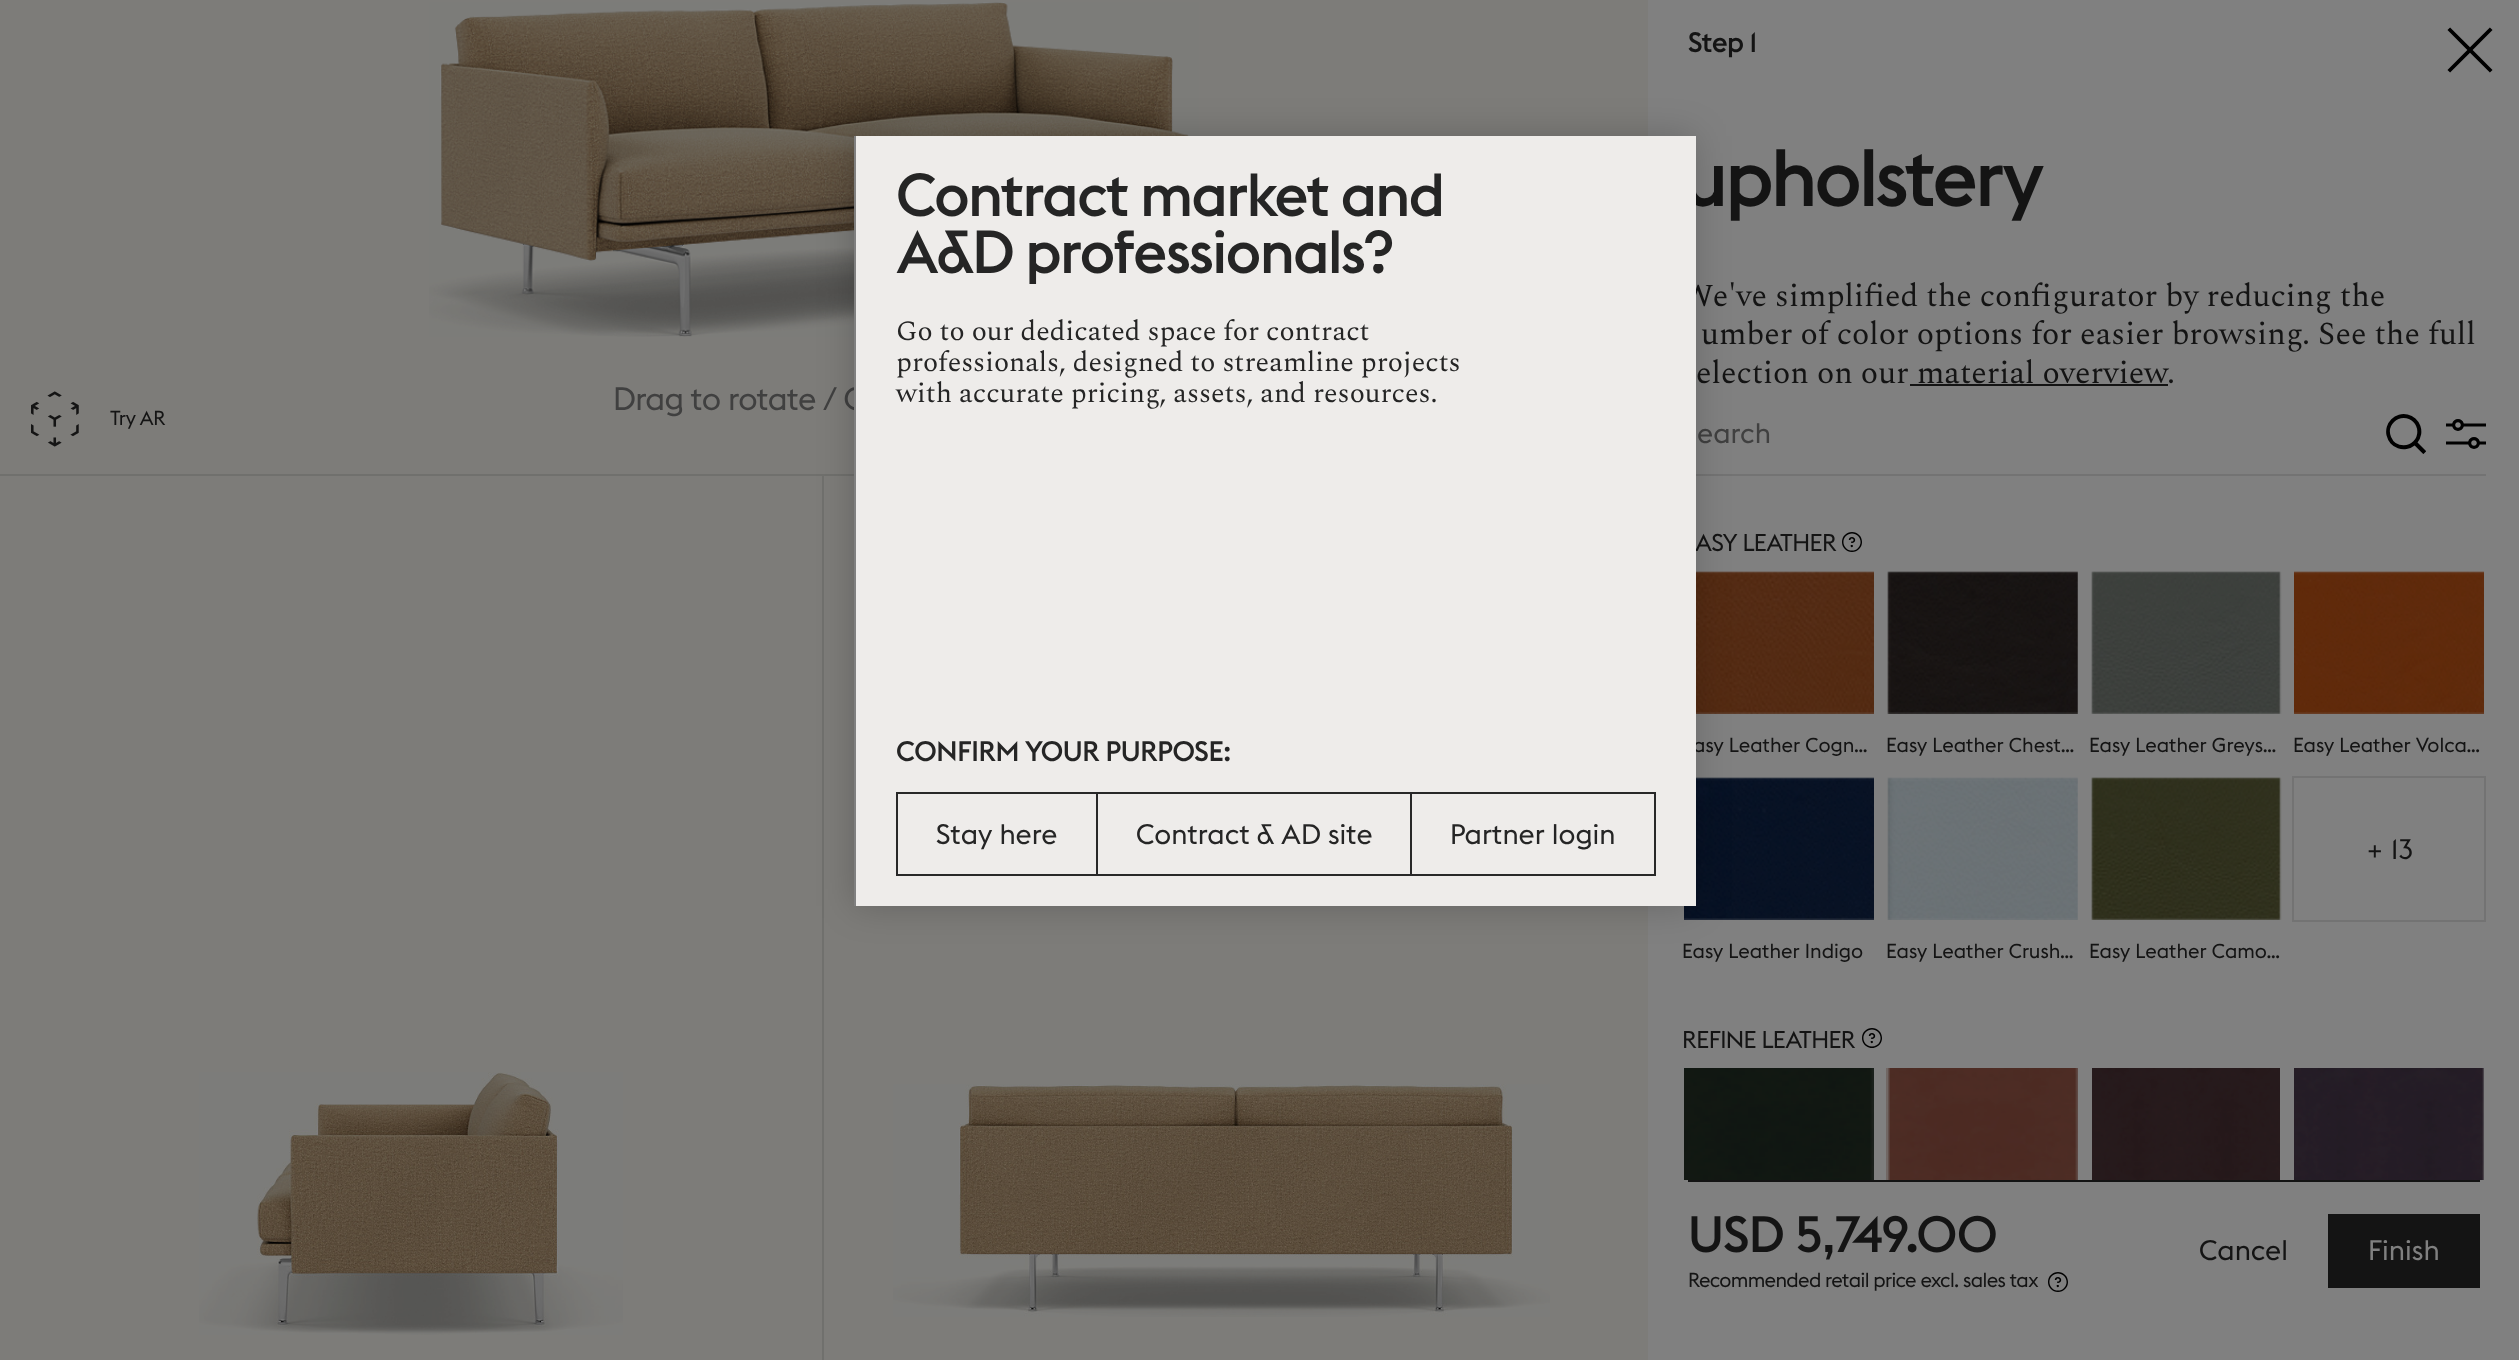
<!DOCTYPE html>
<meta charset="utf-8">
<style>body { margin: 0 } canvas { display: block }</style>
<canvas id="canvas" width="2519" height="1360"></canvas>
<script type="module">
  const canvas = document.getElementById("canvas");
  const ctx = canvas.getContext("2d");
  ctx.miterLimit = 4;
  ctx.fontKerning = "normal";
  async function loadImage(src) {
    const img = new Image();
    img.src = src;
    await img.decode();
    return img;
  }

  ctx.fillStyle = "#808080";
  ctx.fillRect(0, 0, 2519, 1360);
  ctx.fillStyle = "#7d7c79";
  ctx.fillRect(0, 0, 1648, 1360);
  ctx.fillStyle = "#70706d";
  ctx.fillRect(0, 474, 854, 2);
  ctx.letterSpacing = "-0.65px";
  ctx.font = "32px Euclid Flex";
  ctx.fillStyle = "#404040";
  ctx.fillText("Drag to rotate / C", 613, 410);
  ctx.drawImage(await loadImage("img1.png"), 429, 2, 770, 335);
  ctx.drawImage(await loadImage("img2.png"), 31, 391, 48, 56);
  ctx.font = "20px Euclid Flex";
  ctx.fillStyle = "#141414";
  ctx.fillText("Try AR", 110, 425);
  ctx.fillStyle = "#70706d";
  ctx.fillRect(822, 476, 2, 884);
  ctx.drawImage(await loadImage("img3.png"), 199, 1072, 424, 263);
  ctx.drawImage(await loadImage("img4.png"), 893, 1084, 657, 233);
  ctx.font = "500 28px Euclid Flex";
  ctx.fillStyle = "#141414";
  ctx.fillText("Step 1", 1688, 52);
  ctx.drawImage(await loadImage("img5.png"), 2447, 27, 46, 46);
  ctx.letterSpacing = "-3.25px";
  ctx.font = "500 80px Euclid Flex";
  ctx.fillText("upholstery", 1682, 206);
  ctx.letterSpacing = "0px";
  ctx.font = "32px Spectral";
  ctx.fillText("We've simplified the configurator by reducing the", 1682, 306);
  ctx.fillText("umber of color options for easier browsing. See the full", 1701, 344);
  ctx.fillText("election on our", 1696, 383);
  ctx.fillText("material overview", 1917, 383);
  ctx.fillRect(1910, 384, 258, 2);
  ctx.fillText(".", 2167, 383);
  ctx.fillStyle = "#737373";
  ctx.fillRect(1696, 474, 790, 2);
  ctx.font = "28px Euclid Flex";
  ctx.fillStyle = "#404040";
  ctx.fillText("earch", 1697, 443);
  ctx.drawImage(await loadImage("img6.png"), 2386, 414, 40, 40);
  ctx.drawImage(await loadImage("img7.png"), 2446, 419, 40, 30);
  ctx.letterSpacing = "-0.65px";
  ctx.font = "24px Euclid Flex";
  ctx.fillStyle = "#141414";
  ctx.fillText("ASY LEATHER", 1695, 551);
  ctx.drawImage(await loadImage("img8.png"), 1842, 532, 20, 20);
  ctx.drawImage(await loadImage("img9.png"), 1696, 571, 178, 143);
  ctx.letterSpacing = "0px";
  ctx.font = "20px Euclid Flex";
  ctx.fillText("asy Leather Cogn…", 1693, 752);
  ctx.drawImage(await loadImage("img10.png"), 1887, 571, 191, 143);
  ctx.fillText("Easy Leather Chest…", 1886, 752);
  ctx.drawImage(await loadImage("img11.png"), 2091, 571, 191, 143);
  ctx.fillText("Easy Leather Greys…", 2089, 752);
  ctx.drawImage(await loadImage("img12.png"), 2294, 571, 190, 143);
  ctx.fillText("Easy Leather Volca…", 2293, 752);
  ctx.strokeStyle = "#737373";
  ctx.lineWidth = 2;
  ctx.strokeRect(2293, 777, 192, 144);
  ctx.font = "28px Euclid Flex";
  ctx.fillText("+ 13", 2366, 859);
  ctx.drawImage(await loadImage("img13.png"), 1684, 777, 190, 143);
  ctx.font = "20px Euclid Flex";
  ctx.fillText("Easy Leather Indigo", 1682, 958);
  ctx.drawImage(await loadImage("img14.png"), 1887, 777, 191, 143);
  ctx.fillText("Easy Leather Crush…", 1886, 958);
  ctx.drawImage(await loadImage("img15.png"), 2091, 777, 191, 143);
  ctx.fillText("Easy Leather Camo…", 2089, 958);
  ctx.letterSpacing = "-0.65px";
  ctx.font = "24px Euclid Flex";
  ctx.fillText("REFINE LEATHER", 1682, 1048);
  ctx.drawImage(await loadImage("img16.png"), 1862, 1028, 20, 20);
  ctx.drawImage(await loadImage("img17.png"), 1684, 1068, 190, 112);
  ctx.drawImage(await loadImage("img18.png"), 1886, 1068, 192, 112);
  ctx.drawImage(await loadImage("img19.png"), 2092, 1068, 188, 112);
  ctx.drawImage(await loadImage("img20.png"), 2294, 1068, 190, 112);
  ctx.fillRect(1688, 1180, 792, 2);
  ctx.font = "500 50.5px Euclid Flex";
  ctx.fillText("USD 5,749.00", 1688, 1252);
  ctx.font = "20px Euclid Flex";
  ctx.fillText("Recommended retail price excl. sales tax", 1688, 1287);
  ctx.drawImage(await loadImage("img8.png"), 2048, 1272, 20, 20);
  ctx.letterSpacing = "0px";
  ctx.font = "28px Euclid Flex";
  ctx.fillText("Cancel", 2199, 1260);
  ctx.fillRect(2328, 1214, 152, 74);
  ctx.fillStyle = "#808080";
  ctx.fillText("Finish", 2368, 1260);
  ctx.fillStyle = "rgba(0, 0, 0, 0.2)";
  ctx.filter = "blur(18px)";
  ctx.beginPath();
  ctx.rect(854, 136, 840, 770);
  ctx.fill();
  ctx.filter = "none";
  ctx.fillStyle = "#eeecea";
  ctx.fillRect(856, 136, 840, 770);
  ctx.letterSpacing = "-1.75px";
  ctx.font = "500 60px Euclid Flex";
  ctx.fillStyle = "#252525";
  ctx.fillText("Contract market and", 896, 216);
  ctx.fillText("A&D professionals?", 896, 273);
  ctx.letterSpacing = "0px";
  ctx.font = "28px Spectral";
  ctx.fillText("Go to our dedicated space for contract", 896, 340);
  ctx.fillText("professionals, designed to streamline projects", 896, 371);
  ctx.fillText("with accurate pricing, assets, and resources.", 896, 402);
  ctx.letterSpacing = "-0.4px";
  ctx.font = "500 28px Euclid Flex";
  ctx.fillText("CONFIRM YOUR PURPOSE:", 896, 761);
  ctx.fillStyle = "#282828";
  ctx.fillRect(896, 792, 514, 2);
  ctx.fillRect(896, 874, 514, 2);
  ctx.fillRect(896, 792, 2, 84);
  ctx.letterSpacing = "0px";
  ctx.font = "28px Euclid Flex";
  ctx.fillStyle = "#252525";
  ctx.fillText("Stay here", 936, 844);
  ctx.fillStyle = "#282828";
  ctx.fillRect(1096, 792, 2, 84);
  ctx.fillStyle = "#252525";
  ctx.fillText("Contract & AD site", 1136, 844);
  ctx.strokeStyle = "#282828";
  ctx.strokeRect(1411, 793, 244, 82);
  ctx.fillText("Partner login", 1450, 844);
  ctx.fillStyle = "#808080";
  ctx.fillRect(854, 136, 2, 770);
</script>
